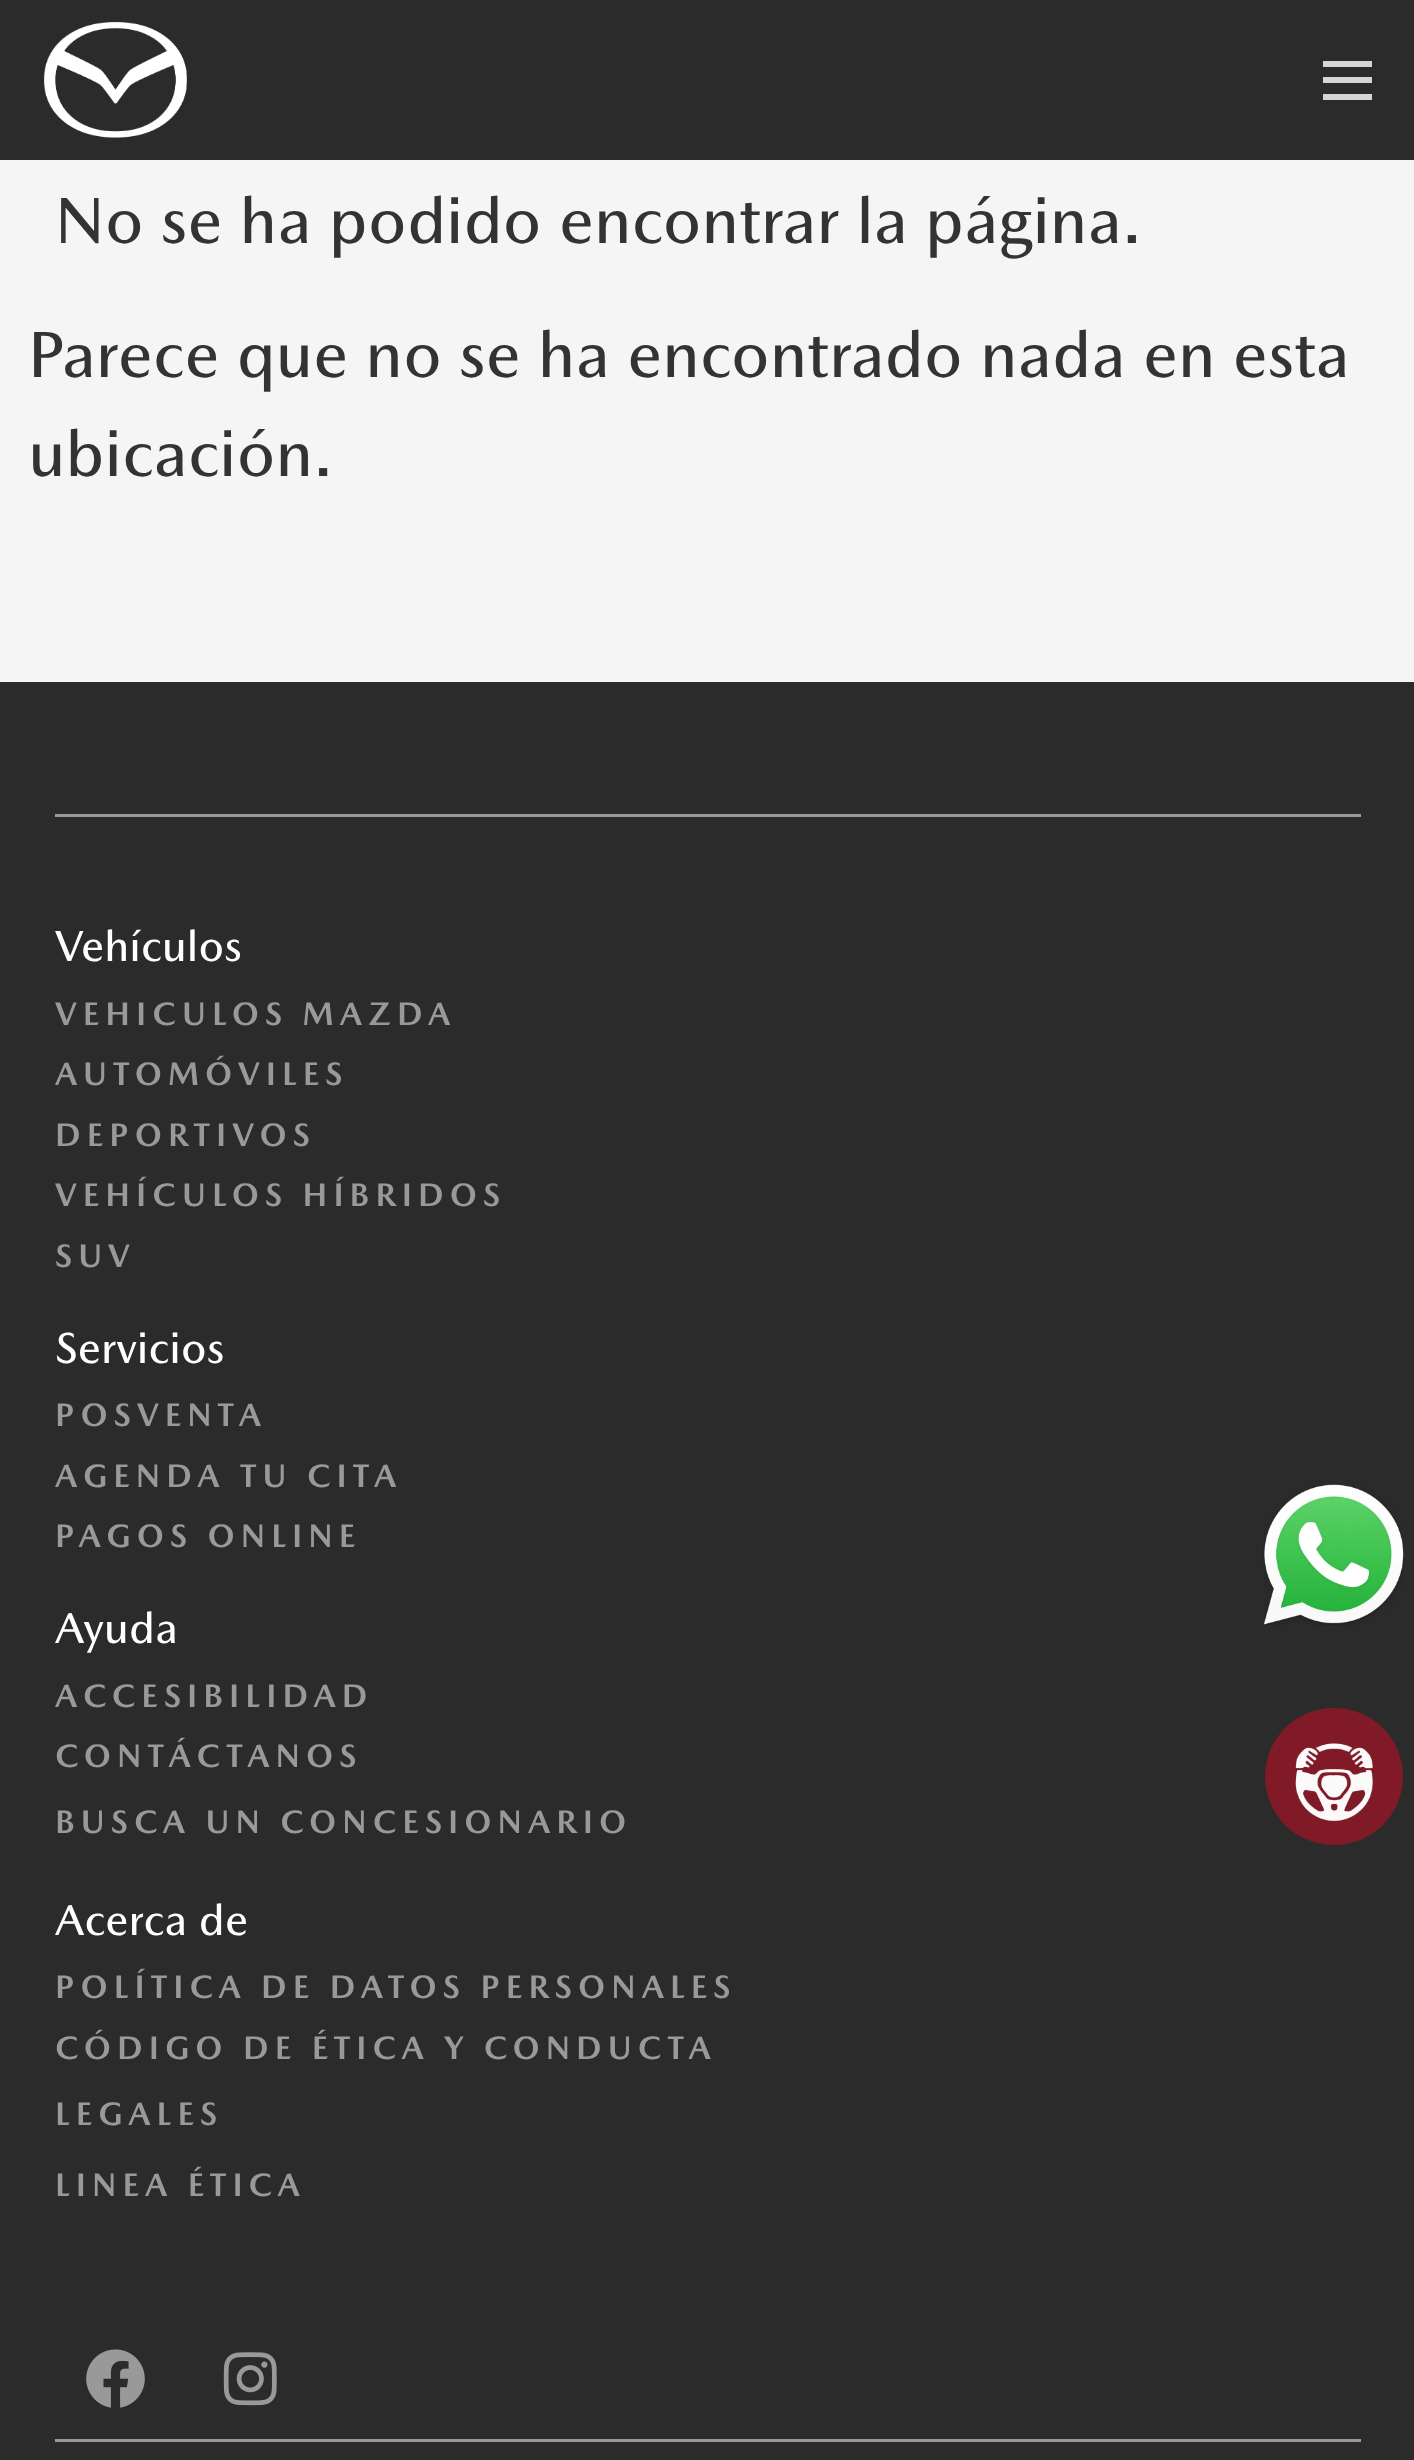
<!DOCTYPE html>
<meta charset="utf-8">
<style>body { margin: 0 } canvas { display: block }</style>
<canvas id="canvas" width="1414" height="2460"></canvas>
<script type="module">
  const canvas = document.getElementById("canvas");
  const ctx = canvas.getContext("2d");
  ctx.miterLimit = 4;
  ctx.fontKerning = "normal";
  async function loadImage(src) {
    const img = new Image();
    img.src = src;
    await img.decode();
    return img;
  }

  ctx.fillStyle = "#f5f5f5";
  ctx.fillRect(0, 0, 1414, 2460);
  ctx.fillStyle = "#2b2b2b";
  ctx.fillRect(0, 0, 1414, 160);
  ctx.drawImage(await loadImage("img1.png"), 44, 22, 143, 116);
  ctx.fillStyle = "#d5d5d5";
  ctx.fillRect(1323, 61, 49, 6);
  ctx.fillRect(1323, 77, 49, 6);
  ctx.fillRect(1323, 94, 49, 6);
  ctx.font = "500 66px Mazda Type";
  ctx.fillStyle = "#333333";
  ctx.fillText("No se ha podido encontrar la página.", 55, 243);
  ctx.fillText("Parece que no se ha encontrado nada en esta", 28, 377);
  ctx.fillText("ubicación.", 28, 476);
  ctx.fillStyle = "#2b2b2b";
  ctx.fillRect(0, 682, 1414, 1778);
  ctx.fillStyle = "#999999";
  ctx.fillRect(55, 814, 1306, 3);
  ctx.font = "500 44px Mazda Type";
  ctx.fillStyle = "#ffffff";
  ctx.fillText("Vehículos", 55, 961);
  ctx.letterSpacing = "6.05px";
  ctx.font = "bold 33px Mazda Type";
  ctx.fillStyle = "#999999";
  ctx.fillText("VEHICULOS MAZDA", 55, 1025);
  ctx.fillText("AUTOMÓVILES", 55, 1085);
  ctx.fillText("DEPORTIVOS", 55, 1146);
  ctx.fillText("VEHÍCULOS HÍBRIDOS", 55, 1206);
  ctx.fillText("SUV", 55, 1267);
  ctx.letterSpacing = "0px";
  ctx.font = "500 44px Mazda Type";
  ctx.fillStyle = "#ffffff";
  ctx.fillText("Servicios", 55, 1363);
  ctx.letterSpacing = "6.05px";
  ctx.font = "bold 33px Mazda Type";
  ctx.fillStyle = "#999999";
  ctx.fillText("POSVENTA", 55, 1426);
  ctx.fillText("AGENDA TU CITA", 55, 1487);
  ctx.fillText("PAGOS ONLINE", 55, 1547);
  ctx.letterSpacing = "0px";
  ctx.font = "500 44px Mazda Type";
  ctx.fillStyle = "#ffffff";
  ctx.fillText("Ayuda", 55, 1643);
  ctx.letterSpacing = "6.05px";
  ctx.font = "bold 33px Mazda Type";
  ctx.fillStyle = "#999999";
  ctx.fillText("ACCESIBILIDAD", 55, 1707);
  ctx.fillText("CONTÁCTANOS", 55, 1767);
  ctx.fillText("BUSCA UN CONCESIONARIO", 55, 1833);
  ctx.letterSpacing = "0px";
  ctx.font = "500 44px Mazda Type";
  ctx.fillStyle = "#ffffff";
  ctx.fillText("Acerca de", 55, 1935);
  ctx.letterSpacing = "6.05px";
  ctx.font = "bold 33px Mazda Type";
  ctx.fillStyle = "#999999";
  ctx.fillText("POLÍTICA DE DATOS PERSONALES", 55, 1998);
  ctx.fillText("CÓDIGO DE ÉTICA Y CONDUCTA", 55, 2059);
  ctx.fillText("LEGALES", 55, 2125);
  ctx.fillText("LINEA ÉTICA", 55, 2196);
  ctx.drawImage(await loadImage("img2.png"), 1263, 1484, 141, 142);
  ctx.fillStyle = "#801a27";
  ctx.beginPath();
  ctx.roundRect(1265, 1708, 138, 137, 68.5);
  ctx.fill();
  ctx.drawImage(await loadImage("img3.png"), 1295, 1743, 78, 79);
  ctx.fillStyle = "#999999";
  ctx.fillRect(55, 2439, 1306, 3);
  ctx.drawImage(await loadImage("img4.png"), 86, 2349, 59, 59);
  ctx.drawImage(await loadImage("img5.png"), 223, 2352, 54, 54);
</script>
